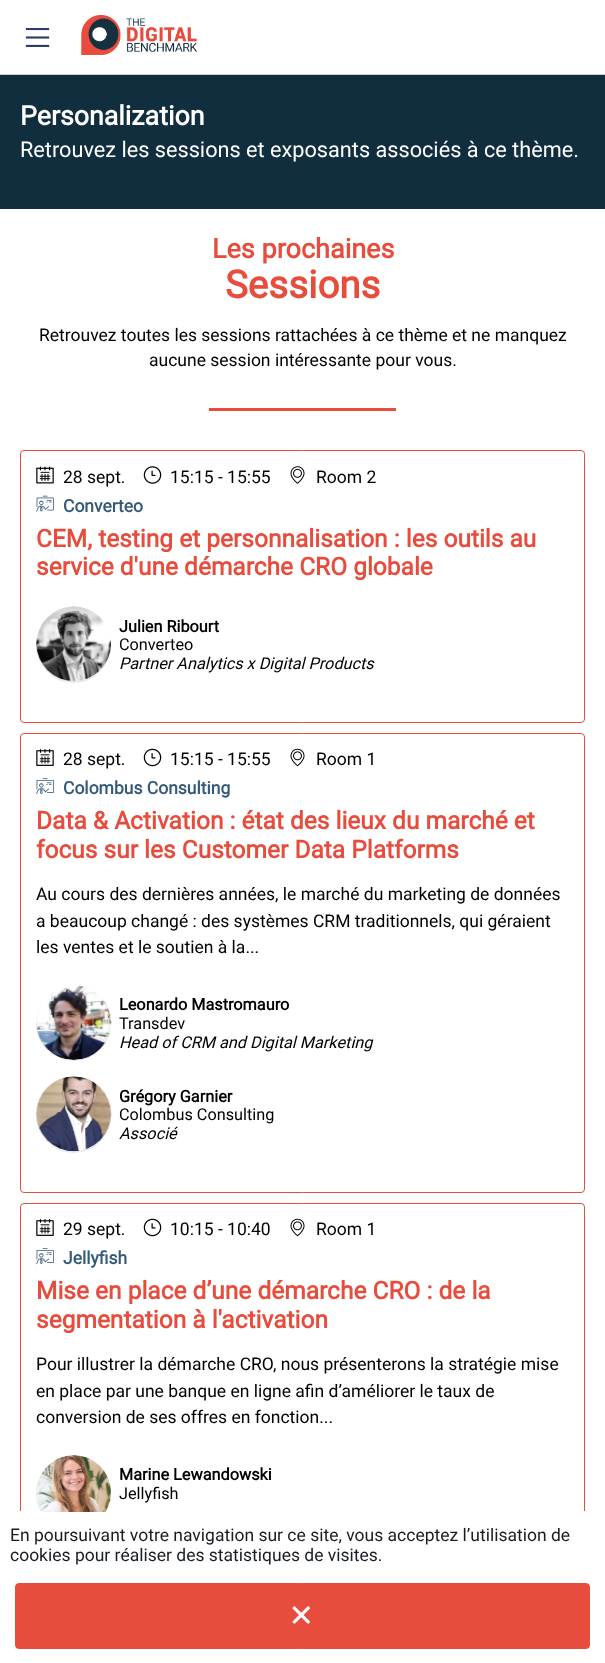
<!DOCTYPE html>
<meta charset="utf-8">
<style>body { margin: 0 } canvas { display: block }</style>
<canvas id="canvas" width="605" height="1663"></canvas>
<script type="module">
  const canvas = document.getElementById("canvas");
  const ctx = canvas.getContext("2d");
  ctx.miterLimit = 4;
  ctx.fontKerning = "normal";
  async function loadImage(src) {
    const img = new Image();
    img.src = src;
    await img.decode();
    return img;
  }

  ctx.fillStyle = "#ffffff";
  ctx.fillRect(0, 0, 605, 1663);
  ctx.drawImage(await loadImage("img1.png"), 25, 28, 25, 19);
  ctx.fillStyle = "#cccccc";
  ctx.fillRect(0, 74, 605, 1);
  ctx.drawImage(await loadImage("img2.png"), 81, 15, 117, 40);
  ctx.fillStyle = "#112e3e";
  ctx.fillRect(0, 75, 605, 134);
  ctx.font = "bold 26.75px Roboto";
  ctx.fillStyle = "#ffffff";
  ctx.fillText("Personalization", 20, 125);
  ctx.font = "21.7px Roboto";
  ctx.fillText("Retrouvez les sessions et exposants associés à ce thème.", 20, 157);
  ctx.font = "bold 27px Roboto";
  ctx.fillStyle = "#e74c3c";
  ctx.fillText("Les prochaines", 212, 258);
  ctx.font = "bold 38.5px Roboto";
  ctx.fillText("Sessions", 225, 298);
  ctx.font = "17.5px Roboto";
  ctx.fillStyle = "#000000";
  ctx.fillText("Retrouvez toutes les sessions rattachées à ce thème et ne manquez", 39, 341);
  ctx.fillText("aucune session intéressante pour vous.", 149, 366);
  ctx.fillStyle = "#e74c3c";
  ctx.fillRect(209, 408, 187, 3);
  ctx.beginPath();
  ctx.roundRect(20.5, 450.5, 564, 272, 3.5);
  ctx.strokeStyle = "#e74c3c";
  ctx.stroke();
  ctx.drawImage(await loadImage("img3.png"), 36, 466, 18, 18);
  ctx.fillStyle = "#000000";
  ctx.fillText("28 sept.", 63, 483);
  ctx.drawImage(await loadImage("img4.png"), 143, 466, 19, 18);
  ctx.fillText("15:15 - 15:55", 170, 483);
  ctx.drawImage(await loadImage("img5.png"), 290, 466, 15, 18);
  ctx.fillText("Room 2", 316, 483);
  ctx.drawImage(await loadImage("img6.png"), 36, 495, 18, 17);
  ctx.font = "bold 17.5px Roboto";
  ctx.fillStyle = "#355979";
  ctx.fillText("Converteo", 63, 512);
  ctx.font = "bold 24.5px Roboto";
  ctx.fillStyle = "#e74c3c";
  ctx.fillText("CEM, testing et personnalisation : les outils au", 36, 547);
  ctx.fillText("service d'une démarche CRO globale", 36, 575);
  ctx.fillStyle = "#e9e9e9";
  ctx.beginPath();
  ctx.arc(73.5, 645.5, 37.5, 0, Math.PI * 2);
  ctx.fill();
  ctx.drawImage(await loadImage("img7.png"), 36, 606, 75, 75);
  ctx.font = "bold 16.25px Roboto";
  ctx.fillStyle = "#000000";
  ctx.fillText("Julien Ribourt", 119, 632);
  ctx.font = "16.25px Roboto";
  ctx.fillText("Converteo", 119, 650);
  ctx.font = "italic 16.25px Roboto";
  ctx.fillText("Partner Analytics x Digital Products", 119, 669);
  ctx.beginPath();
  ctx.roundRect(20.5, 733.5, 564, 459, 3.5);
  ctx.stroke();
  ctx.drawImage(await loadImage("img8.png"), 36, 749, 18, 17);
  ctx.font = "17.5px Roboto";
  ctx.fillText("28 sept.", 63, 765);
  ctx.drawImage(await loadImage("img9.png"), 143, 748, 19, 19);
  ctx.fillText("15:15 - 15:55", 170, 765);
  ctx.drawImage(await loadImage("img10.png"), 290, 748, 15, 19);
  ctx.fillText("Room 1", 316, 765);
  ctx.drawImage(await loadImage("img11.png"), 36, 778, 18, 17);
  ctx.font = "bold 17.5px Roboto";
  ctx.fillStyle = "#355979";
  ctx.fillText("Colombus Consulting", 63, 794);
  ctx.font = "bold 24.5px Roboto";
  ctx.fillStyle = "#e74c3c";
  ctx.fillText("Data & Activation : état des lieux du marché et", 36, 829);
  ctx.fillText("focus sur les Customer Data Platforms", 36, 858);
  ctx.font = "17.5px Roboto";
  ctx.fillStyle = "#000000";
  ctx.fillText("Au cours des dernières années, le marché du marketing de données", 36, 900);
  ctx.fillText("a beaucoup changé : des systèmes CRM traditionnels, qui géraient", 36, 927);
  ctx.fillText("les ventes et le soutien à la...", 36, 953);
  ctx.fillStyle = "#e9e9e9";
  ctx.beginPath();
  ctx.arc(73.5, 1023.5, 37.5, 0, Math.PI * 2);
  ctx.fill();
  ctx.drawImage(await loadImage("img12.png"), 36, 985, 76, 75);
  ctx.font = "bold 16.25px Roboto";
  ctx.fillStyle = "#000000";
  ctx.fillText("Leonardo Mastromauro", 119, 1010);
  ctx.font = "16.25px Roboto";
  ctx.fillText("Transdev", 119, 1029);
  ctx.font = "italic 16.25px Roboto";
  ctx.fillText("Head of CRM and Digital Marketing", 119, 1048);
  ctx.fillStyle = "#e9e9e9";
  ctx.beginPath();
  ctx.arc(73.5, 1115.5, 37.5, 0, Math.PI * 2);
  ctx.fill();
  ctx.drawImage(await loadImage("img13.png"), 36, 1076, 76, 76);
  ctx.font = "bold 16.25px Roboto";
  ctx.fillStyle = "#000000";
  ctx.fillText("Grégory Garnier", 119, 1102);
  ctx.font = "16.25px Roboto";
  ctx.fillText("Colombus Consulting", 119, 1120);
  ctx.font = "italic 16.25px Roboto";
  ctx.fillText("Associé", 119, 1139);
  ctx.font = "17.5px Roboto";
  ctx.fillStyle = "#181d23";
  ctx.fillText("En poursuivant votre navigation sur ce site, vous acceptez l’utilisation de", 10, 1541);
  ctx.fillText("cookies pour réaliser des statistiques de visites.", 10, 1561);
  ctx.save();
  ctx.beginPath();
  ctx.rect(15, 445, 575, 1066);
  ctx.clip();
  ctx.beginPath();
  ctx.roundRect(20.5, 1203.5, 564, 367, 3.5);
  ctx.stroke();
  ctx.restore();
  ctx.drawImage(await loadImage("img8.png"), 36, 1219, 18, 17);
  ctx.fillStyle = "#000000";
  ctx.fillText("29 sept.", 63, 1235);
  ctx.drawImage(await loadImage("img9.png"), 143, 1218, 19, 19);
  ctx.fillText("10:15 - 10:40", 170, 1235);
  ctx.drawImage(await loadImage("img10.png"), 290, 1218, 15, 19);
  ctx.fillText("Room 1", 316, 1235);
  ctx.drawImage(await loadImage("img11.png"), 36, 1248, 18, 17);
  ctx.font = "bold 17.5px Roboto";
  ctx.fillStyle = "#355979";
  ctx.fillText("Jellyfish", 63, 1264);
  ctx.font = "bold 24.5px Roboto";
  ctx.fillStyle = "#e74c3c";
  ctx.fillText("Mise en place d’une démarche CRO : de la", 36, 1299);
  ctx.fillText("segmentation à l'activation", 36, 1328);
  ctx.font = "17.5px Roboto";
  ctx.fillStyle = "#000000";
  ctx.fillText("Pour illustrer la démarche CRO, nous présenterons la stratégie mise", 36, 1370);
  ctx.fillText("en place par une banque en ligne afin d’améliorer le taux de", 36, 1397);
  ctx.fillText("conversion de ses offres en fonction...", 36, 1423);
  ctx.save();
  ctx.beginPath();
  ctx.rect(0, 75, 605, 1436);
  ctx.clip();
  ctx.fillStyle = "#e9e9e9";
  ctx.beginPath();
  ctx.arc(73.5, 1493.5, 37.5, 0, Math.PI * 2);
  ctx.fill();
  ctx.restore();
  ctx.drawImage(await loadImage("img14.png"), 36, 1455, 75, 57);
  ctx.font = "bold 16.25px Roboto";
  ctx.fillText("Marine Lewandowski", 119, 1480);
  ctx.font = "16.25px Roboto";
  ctx.fillText("Jellyfish", 119, 1499);
  ctx.fillStyle = "#e74c3c";
  ctx.beginPath();
  ctx.roundRect(15.5, 1583.5, 574, 65, 3.5);
  ctx.fill();
  ctx.stroke();
  ctx.drawImage(await loadImage("img15.png"), 292, 1606, 18, 18);
</script>
